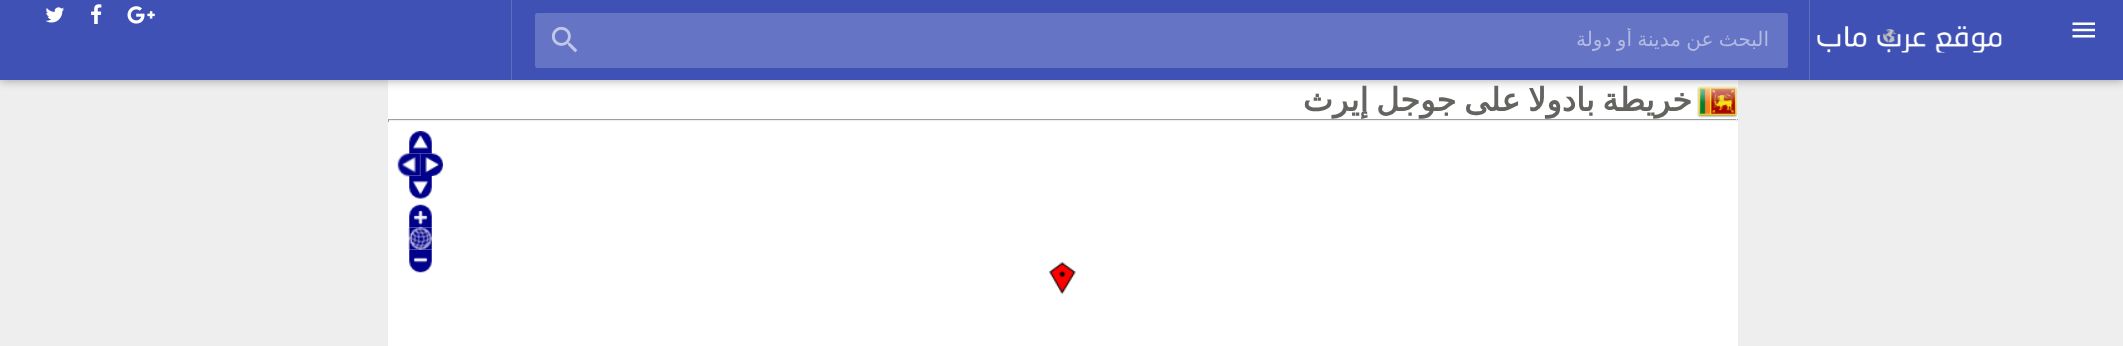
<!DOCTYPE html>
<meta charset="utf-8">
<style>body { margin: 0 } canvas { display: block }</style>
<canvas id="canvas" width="2123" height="346"></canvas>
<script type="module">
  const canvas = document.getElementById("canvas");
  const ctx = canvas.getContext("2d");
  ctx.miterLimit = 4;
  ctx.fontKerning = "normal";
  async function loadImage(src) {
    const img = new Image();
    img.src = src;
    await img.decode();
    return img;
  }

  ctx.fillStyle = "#eeeeee";
  ctx.fillRect(0, 0, 2123, 346);
  ctx.fillStyle = "#ffffff";
  ctx.fillRect(388, 80, 1350, 266);
  ctx.drawImage(await loadImage("img7.png"), 1697, 86, 41, 32);
  ctx.fillStyle = "rgba(0, 0, 0, 0.3)";
  ctx.filter = "blur(5px)";
  ctx.beginPath();
  ctx.rect(0, 1, 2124, 80);
  ctx.fill();
  ctx.filter = "none";
  ctx.fillStyle = "#3f51b5";
  ctx.fillRect(0, 0, 2123, 80);
  ctx.drawImage(await loadImage("img1.png"), 127, 6, 28, 18);
  ctx.drawImage(await loadImage("img2.png"), 91, 4, 11, 20);
  ctx.drawImage(await loadImage("img3.png"), 45, 7, 19, 16);
  ctx.drawImage(await loadImage("img4.png"), 2072, 22, 23, 16);
  ctx.drawImage(await loadImage("img5.png"), 1817, 26, 185, 27);
  ctx.fillStyle = "#5d6cc1";
  ctx.fillRect(1809, 0, 1, 80);
  ctx.fillRect(511, 0, 1, 80);
  ctx.fillStyle = "#6574c4";
  ctx.beginPath();
  ctx.roundRect(535, 13, 1253, 55, 2.5);
  ctx.fill();
  ctx.save();
  ctx.beginPath();
  ctx.rect(616, 28, 1153, 23);
  ctx.clip();
  ctx.wordSpacing = "-1px";
  ctx.direction = "rtl";
  ctx.font = "20px DejaVu Sans";
  ctx.fillStyle = "#b2bae2";
  ctx.fillText("البحث عن مدينة أو دولة", 1769, 46);
  ctx.restore();
  ctx.drawImage(await loadImage("img6.png"), 551, 26, 27, 27);
  ctx.wordSpacing = "-2.5px";
  ctx.direction = "rtl";
  ctx.font = "bold 32px DejaVu Sans";
  ctx.fillStyle = "#646360";
  ctx.fillText("خريطة بادولا على جوجل إيرث", 1692, 111);
  ctx.fillStyle = "#9f9f9f";
  ctx.fillRect(388, 119, 1350, 1);
  ctx.fillStyle = "#eeeeee";
  ctx.fillRect(1736, 119, 1, 3);
  ctx.fillRect(388, 120, 1350, 1);
  ctx.fillStyle = "#9f9f9f";
  ctx.fillRect(388, 119, 1, 3);
  ctx.drawImage(await loadImage("img8.png"), 409, 131, 23, 23);
  ctx.drawImage(await loadImage("img10.png"), 397, 153, 24, 24);
  ctx.drawImage(await loadImage("img9.png"), 420, 153, 23, 23);
  ctx.drawImage(await loadImage("img11.png"), 409, 176, 23, 23);
  ctx.drawImage(await loadImage("img12.png"), 409, 204, 23, 24);
  ctx.drawImage(await loadImage("img13.png"), 408, 226, 24, 25);
  ctx.drawImage(await loadImage("img14.png"), 409, 249, 23, 24);
  ctx.drawImage(await loadImage("img15.png"), 1049, 262, 27, 32);
</script>
